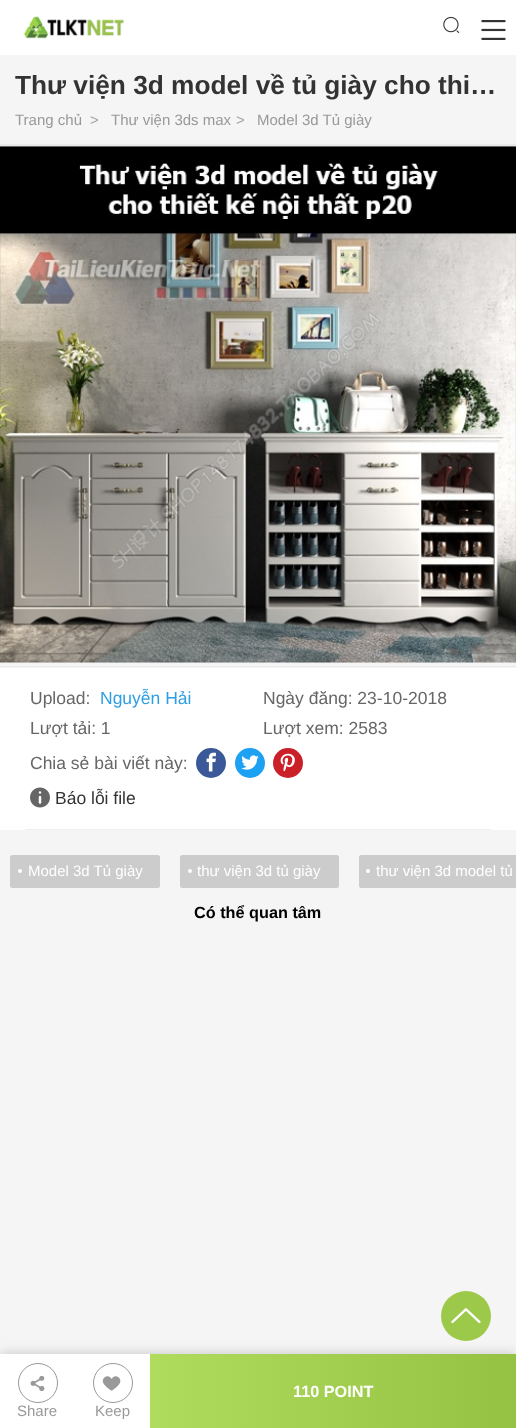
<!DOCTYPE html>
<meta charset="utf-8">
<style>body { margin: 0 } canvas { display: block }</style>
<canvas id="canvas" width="516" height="1428"></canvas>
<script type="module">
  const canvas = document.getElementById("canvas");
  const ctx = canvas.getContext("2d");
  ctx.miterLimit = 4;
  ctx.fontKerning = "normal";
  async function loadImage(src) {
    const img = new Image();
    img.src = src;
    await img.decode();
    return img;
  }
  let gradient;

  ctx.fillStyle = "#f5f5f5";
  ctx.fillRect(0, 0, 516, 1428);
  ctx.fillStyle = "#ffffff";
  ctx.fillRect(0, 0, 516, 55);
  ctx.drawImage(await loadImage("img1.png"), 24, 16, 100, 23);
  ctx.drawImage(await loadImage("img2.png"), 443, 16, 17, 17);
  ctx.drawImage(await loadImage("img3.png"), 481, 20, 25, 20);
  ctx.font = "bold 26.25px Liberation Sans";
  ctx.fillStyle = "#333333";
  ctx.fillText("Thư viện 3d model về tủ giày cho thi…", 15, 94);
  ctx.font = "15px Liberation Sans";
  ctx.fillStyle = "#999999";
  ctx.fillText("Trang chủ", 15, 125);
  ctx.fillStyle = "#a6a6a6";
  ctx.fillText(">", 90, 125);
  ctx.fillStyle = "#999999";
  ctx.fillText("Thư viện 3ds max", 111, 125);
  ctx.fillStyle = "#a6a6a6";
  ctx.fillText(">", 236, 125);
  ctx.fillStyle = "#999999";
  ctx.fillText("Model 3d Tủ giày", 257, 125);
  ctx.fillStyle = "#ffffff";
  ctx.fillRect(0, 668, 516, 162);
  ctx.fillStyle = "#eaeaea";
  ctx.fillRect(0, 144, 516, 3);
  ctx.fillRect(0, 666, 516, 1);
  ctx.drawImage(await loadImage("img4.png"), 0, 146, 516, 517);
  ctx.fillStyle = "#eeeeee";
  ctx.fillRect(25, 829, 466, 1);
  ctx.font = "17.5px Liberation Sans";
  ctx.fillStyle = "#666666";
  ctx.fillText("Upload:", 30, 704);
  ctx.fillStyle = "#2e9fe2";
  ctx.fillText("Nguyễn Hải", 100, 704);
  ctx.fillStyle = "#666666";
  ctx.fillText("Ngày đăng: 23-10-2018", 263, 704);
  ctx.fillText("Lượt tải: 1", 30, 734);
  ctx.fillText("Lượt xem: 2583", 263, 734);
  ctx.fillText("Chia sẻ bài viết này:", 30, 769);
  ctx.fillStyle = "#3b5998";
  ctx.beginPath();
  ctx.arc(211, 763, 15, 0, Math.PI * 2);
  ctx.fill();
  ctx.drawImage(await loadImage("img5.png"), 206, 752, 10, 20);
  ctx.fillStyle = "#1da1f2";
  ctx.beginPath();
  ctx.arc(250, 763, 15, 0, Math.PI * 2);
  ctx.fill();
  ctx.drawImage(await loadImage("img6.png"), 241, 755, 18, 15);
  ctx.fillStyle = "#cb2027";
  ctx.beginPath();
  ctx.arc(288, 763, 15, 0, Math.PI * 2);
  ctx.fill();
  ctx.drawImage(await loadImage("img7.png"), 280, 753, 15, 19);
  ctx.drawImage(await loadImage("img8.png"), 30, 787, 20, 21);
  ctx.fillStyle = "#333333";
  ctx.fillText("Báo lỗi file", 55, 804);
  ctx.fillStyle = "#cccccc";
  ctx.beginPath();
  ctx.roundRect(10, 855, 150, 33, 2.5);
  ctx.fill();
  ctx.fillStyle = "#ffffff";
  ctx.beginPath();
  ctx.arc(20, 871, 2, 0, Math.PI * 2);
  ctx.fill();
  ctx.font = "15px Liberation Sans";
  ctx.fillText("Model 3d Tủ giày", 28, 876);
  ctx.fillStyle = "#cccccc";
  ctx.beginPath();
  ctx.roundRect(180, 855, 159, 33, 2.5);
  ctx.fill();
  ctx.fillStyle = "#ffffff";
  ctx.beginPath();
  ctx.arc(190, 871, 2, 0, Math.PI * 2);
  ctx.fill();
  ctx.fillText("thư viện 3d tủ giày", 197, 876);
  ctx.fillStyle = "#cccccc";
  ctx.beginPath();
  ctx.roundRect(359, 855, 157, 33, [2.5, 0, 0, 2.5]);
  ctx.fill();
  ctx.fillStyle = "#ffffff";
  ctx.beginPath();
  ctx.arc(368, 871, 2, 0, Math.PI * 2);
  ctx.fill();
  ctx.fillText("thư viện 3d model tủ", 376, 876);
  ctx.font = "bold 16.25px Liberation Sans";
  ctx.fillStyle = "#000000";
  ctx.fillText("Có thể quan tâm", 194, 918);
  ctx.fillStyle = "rgba(0, 0, 0, 0.2)";
  ctx.filter = "blur(6px)";
  ctx.beginPath();
  ctx.rect(0, 1354, 516, 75);
  ctx.fill();
  ctx.filter = "none";
  ctx.fillStyle = "#9dc94b";
  ctx.beginPath();
  ctx.arc(466, 1316, 25, 0, Math.PI * 2);
  ctx.fill();
  ctx.drawImage(await loadImage("img9.png"), 451, 1308, 30, 16);
  ctx.fillStyle = "#ffffff";
  ctx.fillRect(0, 1354, 150, 74);
  gradient = ctx.createLinearGradient(150, 1391, 516, 1391);
  gradient.addColorStop(0, "#b0dc5e");
  gradient.addColorStop(1, "#96c244");
  ctx.fillStyle = gradient;
  ctx.fillRect(150, 1354, 366, 74);
  ctx.fillStyle = "#ffffff";
  ctx.fillText("110 POINT", 293, 1397);
  ctx.beginPath();
  ctx.arc(38, 1383, 19.5, 0, Math.PI * 2);
  ctx.strokeStyle = "#999999";
  ctx.stroke();
  ctx.drawImage(await loadImage("img10.png"), 30, 1375, 15, 17);
  ctx.font = "15px Liberation Sans";
  ctx.fillStyle = "#999999";
  ctx.fillText("Share", 17, 1416);
  ctx.beginPath();
  ctx.arc(113, 1383, 19.5, 0, Math.PI * 2);
  ctx.stroke();
  ctx.drawImage(await loadImage("img11.png"), 102, 1376, 19, 15);
  ctx.fillText("Keep", 95, 1416);
</script>
